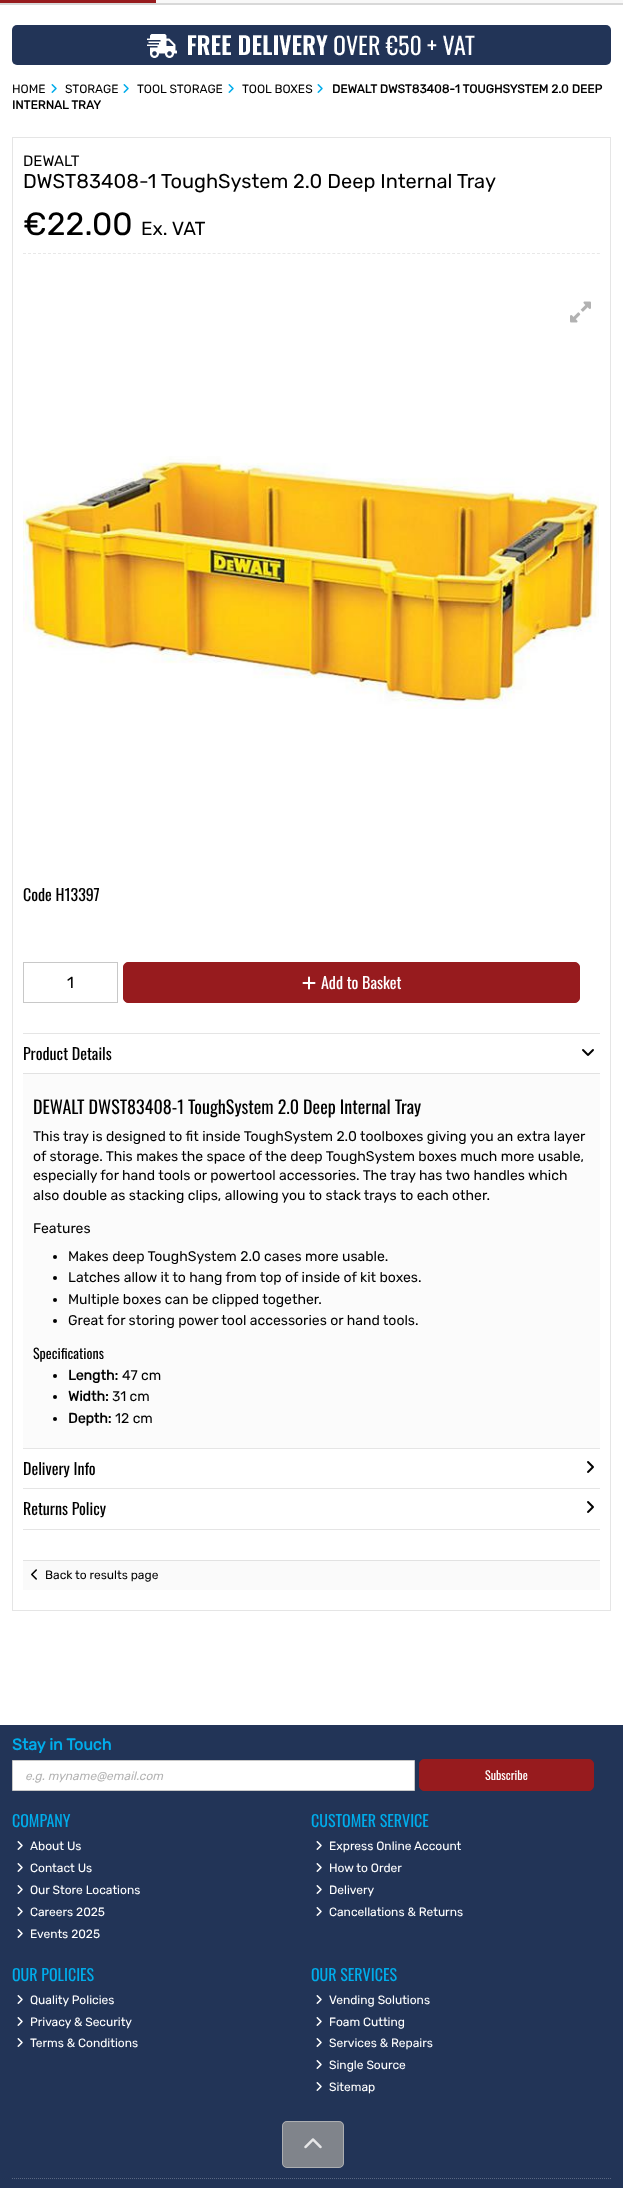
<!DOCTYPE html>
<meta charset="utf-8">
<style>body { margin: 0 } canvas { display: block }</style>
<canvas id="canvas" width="623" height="2188"></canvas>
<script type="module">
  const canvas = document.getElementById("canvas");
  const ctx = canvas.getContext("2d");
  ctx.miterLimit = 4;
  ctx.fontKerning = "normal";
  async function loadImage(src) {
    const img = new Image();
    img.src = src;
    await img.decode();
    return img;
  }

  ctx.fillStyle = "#223457";
  ctx.fillRect(0, 0, 623, 2188);
  ctx.fillStyle = "#f8f8f8";
  ctx.fillRect(156, 0, 467, 3);
  ctx.fillStyle = "#d8d8d8";
  ctx.fillRect(0, 3, 623, 2);
  ctx.fillStyle = "#971b1e";
  ctx.fillRect(0, 0, 156, 3);
  ctx.fillStyle = "#ffffff";
  ctx.fillRect(0, 5, 623, 1720);
  ctx.fillStyle = "#223457";
  ctx.beginPath();
  ctx.roundRect(12, 25, 599, 40, 5);
  ctx.fill();
  ctx.drawImage(await loadImage("img1.png"), 147, 34, 328, 24);
  ctx.font = "300 12px Rubik";
  ctx.fillStyle = "#000000";
  ctx.fillText("HOME", 12, 93);
  ctx.drawImage(await loadImage("img2.png"), 51, 84, 6, 9);
  ctx.fillText("STORAGE", 65, 93);
  ctx.drawImage(await loadImage("img2.png"), 123, 84, 6, 9);
  ctx.fillText("TOOL STORAGE", 137, 93);
  ctx.drawImage(await loadImage("img2.png"), 228, 84, 6, 9);
  ctx.fillText("TOOL BOXES", 242, 93);
  ctx.drawImage(await loadImage("img2.png"), 317, 84, 6, 9);
  ctx.font = "bold 12px Rubik";
  ctx.fillText("DEWALT DWST83408-1 TOUGHSYSTEM 2.0 DEEP", 332, 93);
  ctx.fillText("INTERNAL TRAY", 12, 109);
  ctx.strokeStyle = "#e5e5e5";
  ctx.strokeRect(12.5, 137.5, 598, 1473);
  ctx.beginPath();
  ctx.moveTo(23, 253.5);
  ctx.lineTo(600, 253.5);
  ctx.strokeStyle = "#e8e8e8";
  ctx.setLineDash([3, 1.99]);
  ctx.stroke();
  ctx.font = "300 15px Rubik";
  ctx.fillText("DEWALT", 23, 166);
  ctx.font = "300 20px Rubik";
  ctx.fillText("DWST83408-1 ToughSystem 2.0 Deep Internal Tray", 23, 188);
  ctx.font = "300 32px Rubik";
  ctx.fillText("€22.00", 23, 235);
  ctx.font = "300 19px Rubik";
  ctx.fillText("Ex. VAT", 141, 235);
  ctx.drawImage(await loadImage("img3.png"), 570, 301, 21, 22);
  ctx.drawImage(await loadImage("img4.png"), 23, 456, 576, 253);
  ctx.font = "16px Oswald";
  ctx.fillText("Code H13397", 23, 901);
  ctx.strokeStyle = "#c8c8c8";
  ctx.setLineDash([]);
  ctx.strokeRect(23.5, 962.5, 94, 40);
  ctx.font = "300 16px Rubik";
  ctx.fillText("1", 67, 988);
  ctx.fillStyle = "#971b1e";
  ctx.beginPath();
  ctx.roundRect(123.5, 962.5, 456, 40, 4.5);
  ctx.fill();
  ctx.strokeStyle = "#971b1e";
  ctx.stroke();
  ctx.drawImage(await loadImage("img5.png"), 302, 976, 14, 14);
  ctx.font = "16px Oswald";
  ctx.fillStyle = "#ffffff";
  ctx.fillText("Add to Basket", 321, 989);
  ctx.fillStyle = "#e5e5e5";
  ctx.fillRect(23, 1529, 577, 1);
  ctx.fillRect(23, 1033, 577, 1);
  ctx.fillStyle = "#000000";
  ctx.fillText("Product Details", 23, 1060);
  ctx.drawImage(await loadImage("img6.png"), 582, 1049, 12, 7);
  ctx.fillStyle = "#fbfbfb";
  ctx.fillRect(23, 1074, 577, 374);
  ctx.fillStyle = "#e2e2e2";
  ctx.fillRect(23, 1073, 577, 1);
  ctx.font = "18px Oswald";
  ctx.fillStyle = "#000000";
  ctx.fillText("DEWALT DWST83408-1 ToughSystem 2.0 Deep Internal Tray", 33, 1114);
  ctx.font = "300 14px Rubik";
  ctx.fillText("This tray is designed to fit inside ToughSystem 2.0 toolboxes giving you an extra layer", 33, 1141);
  ctx.fillText("of storage. This makes the space of the deep ToughSystem boxes much more usable,", 33, 1161);
  ctx.fillText("especially for hand tools or powertool accessories. The tray has two handles which", 33, 1180);
  ctx.fillText("also double as stacking clips, allowing you to stack trays to each other.", 33, 1200);
  ctx.fillText("Features", 33, 1233);
  ctx.beginPath();
  ctx.arc(55, 1257, 2, 0, Math.PI * 2);
  ctx.fill();
  ctx.fillText("Makes deep ToughSystem 2.0 cases more usable.", 68, 1261);
  ctx.beginPath();
  ctx.arc(55, 1278, 2, 0, Math.PI * 2);
  ctx.fill();
  ctx.fillText("Latches allow it to hang from top of inside of kit boxes.", 68, 1282);
  ctx.beginPath();
  ctx.arc(55, 1300, 2, 0, Math.PI * 2);
  ctx.fill();
  ctx.fillText("Multiple boxes can be clipped together.", 68, 1304);
  ctx.beginPath();
  ctx.arc(55, 1321, 2, 0, Math.PI * 2);
  ctx.fill();
  ctx.fillText("Great for storing power tool accessories or hand tools.", 68, 1325);
  ctx.font = "14px Oswald";
  ctx.fillText("Specifications", 33, 1359);
  ctx.beginPath();
  ctx.arc(55, 1376, 2, 0, Math.PI * 2);
  ctx.fill();
  ctx.font = "bold 14px Rubik";
  ctx.fillText("Length:", 68, 1380);
  ctx.font = "300 14px Rubik";
  ctx.fillText("47 cm", 122, 1380);
  ctx.beginPath();
  ctx.arc(55, 1397, 2, 0, Math.PI * 2);
  ctx.fill();
  ctx.font = "bold 14px Rubik";
  ctx.fillText("Width:", 68, 1401);
  ctx.font = "300 14px Rubik";
  ctx.fillText("31 cm", 112, 1401);
  ctx.beginPath();
  ctx.arc(55, 1419, 2, 0, Math.PI * 2);
  ctx.fill();
  ctx.font = "bold 14px Rubik";
  ctx.fillText("Depth:", 68, 1423);
  ctx.font = "300 14px Rubik";
  ctx.fillText("12 cm", 115, 1423);
  ctx.fillStyle = "#e5e5e5";
  ctx.fillRect(23, 1448, 577, 1);
  ctx.font = "16px Oswald";
  ctx.fillStyle = "#000000";
  ctx.fillText("Delivery Info", 23, 1475);
  ctx.drawImage(await loadImage("img7.png"), 587, 1461, 7, 12);
  ctx.fillStyle = "#e5e5e5";
  ctx.fillRect(23, 1488, 577, 1);
  ctx.fillStyle = "#000000";
  ctx.fillText("Returns Policy", 23, 1515);
  ctx.drawImage(await loadImage("img7.png"), 587, 1501, 7, 12);
  ctx.fillStyle = "#fafafa";
  ctx.fillRect(23, 1561, 577, 29);
  ctx.fillStyle = "#e2e2e2";
  ctx.fillRect(23, 1560, 577, 1);
  ctx.drawImage(await loadImage("img8.png"), 31, 1569, 6, 11);
  ctx.font = "300 12px Rubik";
  ctx.fillStyle = "#000000";
  ctx.fillText("Back to results page", 45, 1579);
  ctx.font = "bold 16px Rubik";
  ctx.fillStyle = "#00acea";
  ctx.fillText("Stay in Touch", 12, 1750);
  ctx.fillStyle = "#ffffff";
  ctx.beginPath();
  ctx.rect(12.5, 1760.5, 402, 30);
  ctx.fill();
  ctx.strokeStyle = "#c8c8c8";
  ctx.stroke();
  ctx.font = "italic 300 12px Rubik";
  ctx.fillStyle = "#b4b4b4";
  ctx.fillText("e.g. myname@email.com", 25, 1780);
  ctx.fillStyle = "#971b1e";
  ctx.beginPath();
  ctx.roundRect(419.5, 1759.5, 174, 31, 4.5);
  ctx.fill();
  ctx.strokeStyle = "#971b1e";
  ctx.stroke();
  ctx.font = "12px Oswald";
  ctx.fillStyle = "#ffffff";
  ctx.fillText("Subscribe", 485, 1780);
  ctx.beginPath();
  ctx.moveTo(12, 2178.5);
  ctx.lineTo(611, 2178.5);
  ctx.strokeStyle = "#596781";
  ctx.setLineDash([1, 1]);
  ctx.stroke();
  ctx.font = "16px Oswald";
  ctx.fillStyle = "#00acea";
  ctx.fillText("COMPANY", 12, 1827);
  ctx.drawImage(await loadImage("img9.png"), 17, 1841, 6, 9);
  ctx.font = "300 12px Rubik";
  ctx.fillStyle = "#ffffff";
  ctx.fillText("About Us", 30, 1850);
  ctx.drawImage(await loadImage("img9.png"), 17, 1863, 6, 9);
  ctx.fillText("Contact Us", 30, 1872);
  ctx.drawImage(await loadImage("img9.png"), 17, 1885, 6, 9);
  ctx.fillText("Our Store Locations", 30, 1894);
  ctx.drawImage(await loadImage("img9.png"), 17, 1907, 6, 9);
  ctx.fillText("Careers 2025", 30, 1916);
  ctx.drawImage(await loadImage("img9.png"), 17, 1929, 6, 9);
  ctx.fillText("Events 2025", 30, 1938);
  ctx.font = "16px Oswald";
  ctx.fillStyle = "#00acea";
  ctx.fillText("CUSTOMER SERVICE", 311, 1827);
  ctx.drawImage(await loadImage("img9.png"), 316, 1841, 6, 9);
  ctx.font = "300 12px Rubik";
  ctx.fillStyle = "#ffffff";
  ctx.fillText("Express Online Account", 329, 1850);
  ctx.drawImage(await loadImage("img9.png"), 316, 1863, 6, 9);
  ctx.fillText("How to Order", 329, 1872);
  ctx.drawImage(await loadImage("img9.png"), 316, 1885, 6, 9);
  ctx.fillText("Delivery", 329, 1894);
  ctx.drawImage(await loadImage("img9.png"), 316, 1907, 6, 9);
  ctx.fillText("Cancellations & Returns", 329, 1916);
  ctx.font = "16px Oswald";
  ctx.fillStyle = "#00acea";
  ctx.fillText("OUR POLICIES", 12, 1981);
  ctx.drawImage(await loadImage("img9.png"), 17, 1995, 6, 9);
  ctx.font = "300 12px Rubik";
  ctx.fillStyle = "#ffffff";
  ctx.fillText("Quality Policies", 30, 2004);
  ctx.drawImage(await loadImage("img9.png"), 17, 2017, 6, 9);
  ctx.fillText("Privacy & Security", 30, 2026);
  ctx.drawImage(await loadImage("img9.png"), 17, 2038, 6, 9);
  ctx.fillText("Terms & Conditions", 30, 2047);
  ctx.font = "16px Oswald";
  ctx.fillStyle = "#00acea";
  ctx.fillText("OUR SERVICES", 311, 1981);
  ctx.drawImage(await loadImage("img9.png"), 316, 1995, 6, 9);
  ctx.font = "300 12px Rubik";
  ctx.fillStyle = "#ffffff";
  ctx.fillText("Vending Solutions", 329, 2004);
  ctx.drawImage(await loadImage("img9.png"), 316, 2017, 6, 9);
  ctx.fillText("Foam Cutting", 329, 2026);
  ctx.drawImage(await loadImage("img9.png"), 316, 2038, 6, 9);
  ctx.fillText("Services & Repairs", 329, 2047);
  ctx.drawImage(await loadImage("img9.png"), 316, 2060, 6, 9);
  ctx.fillText("Single Source", 329, 2069);
  ctx.drawImage(await loadImage("img9.png"), 316, 2082, 6, 9);
  ctx.fillText("Sitemap", 329, 2091);
  ctx.fillStyle = "#80848b";
  ctx.beginPath();
  ctx.roundRect(282, 2121, 62, 47, 5);
  ctx.fill();
  ctx.beginPath();
  ctx.roundRect(282.5, 2121.5, 61, 46, 4.5);
  ctx.strokeStyle = "rgba(216, 216, 216, 0.5)";
  ctx.setLineDash([]);
  ctx.stroke();
  ctx.drawImage(await loadImage("img10.png"), 304, 2138, 18, 11);
</script>
